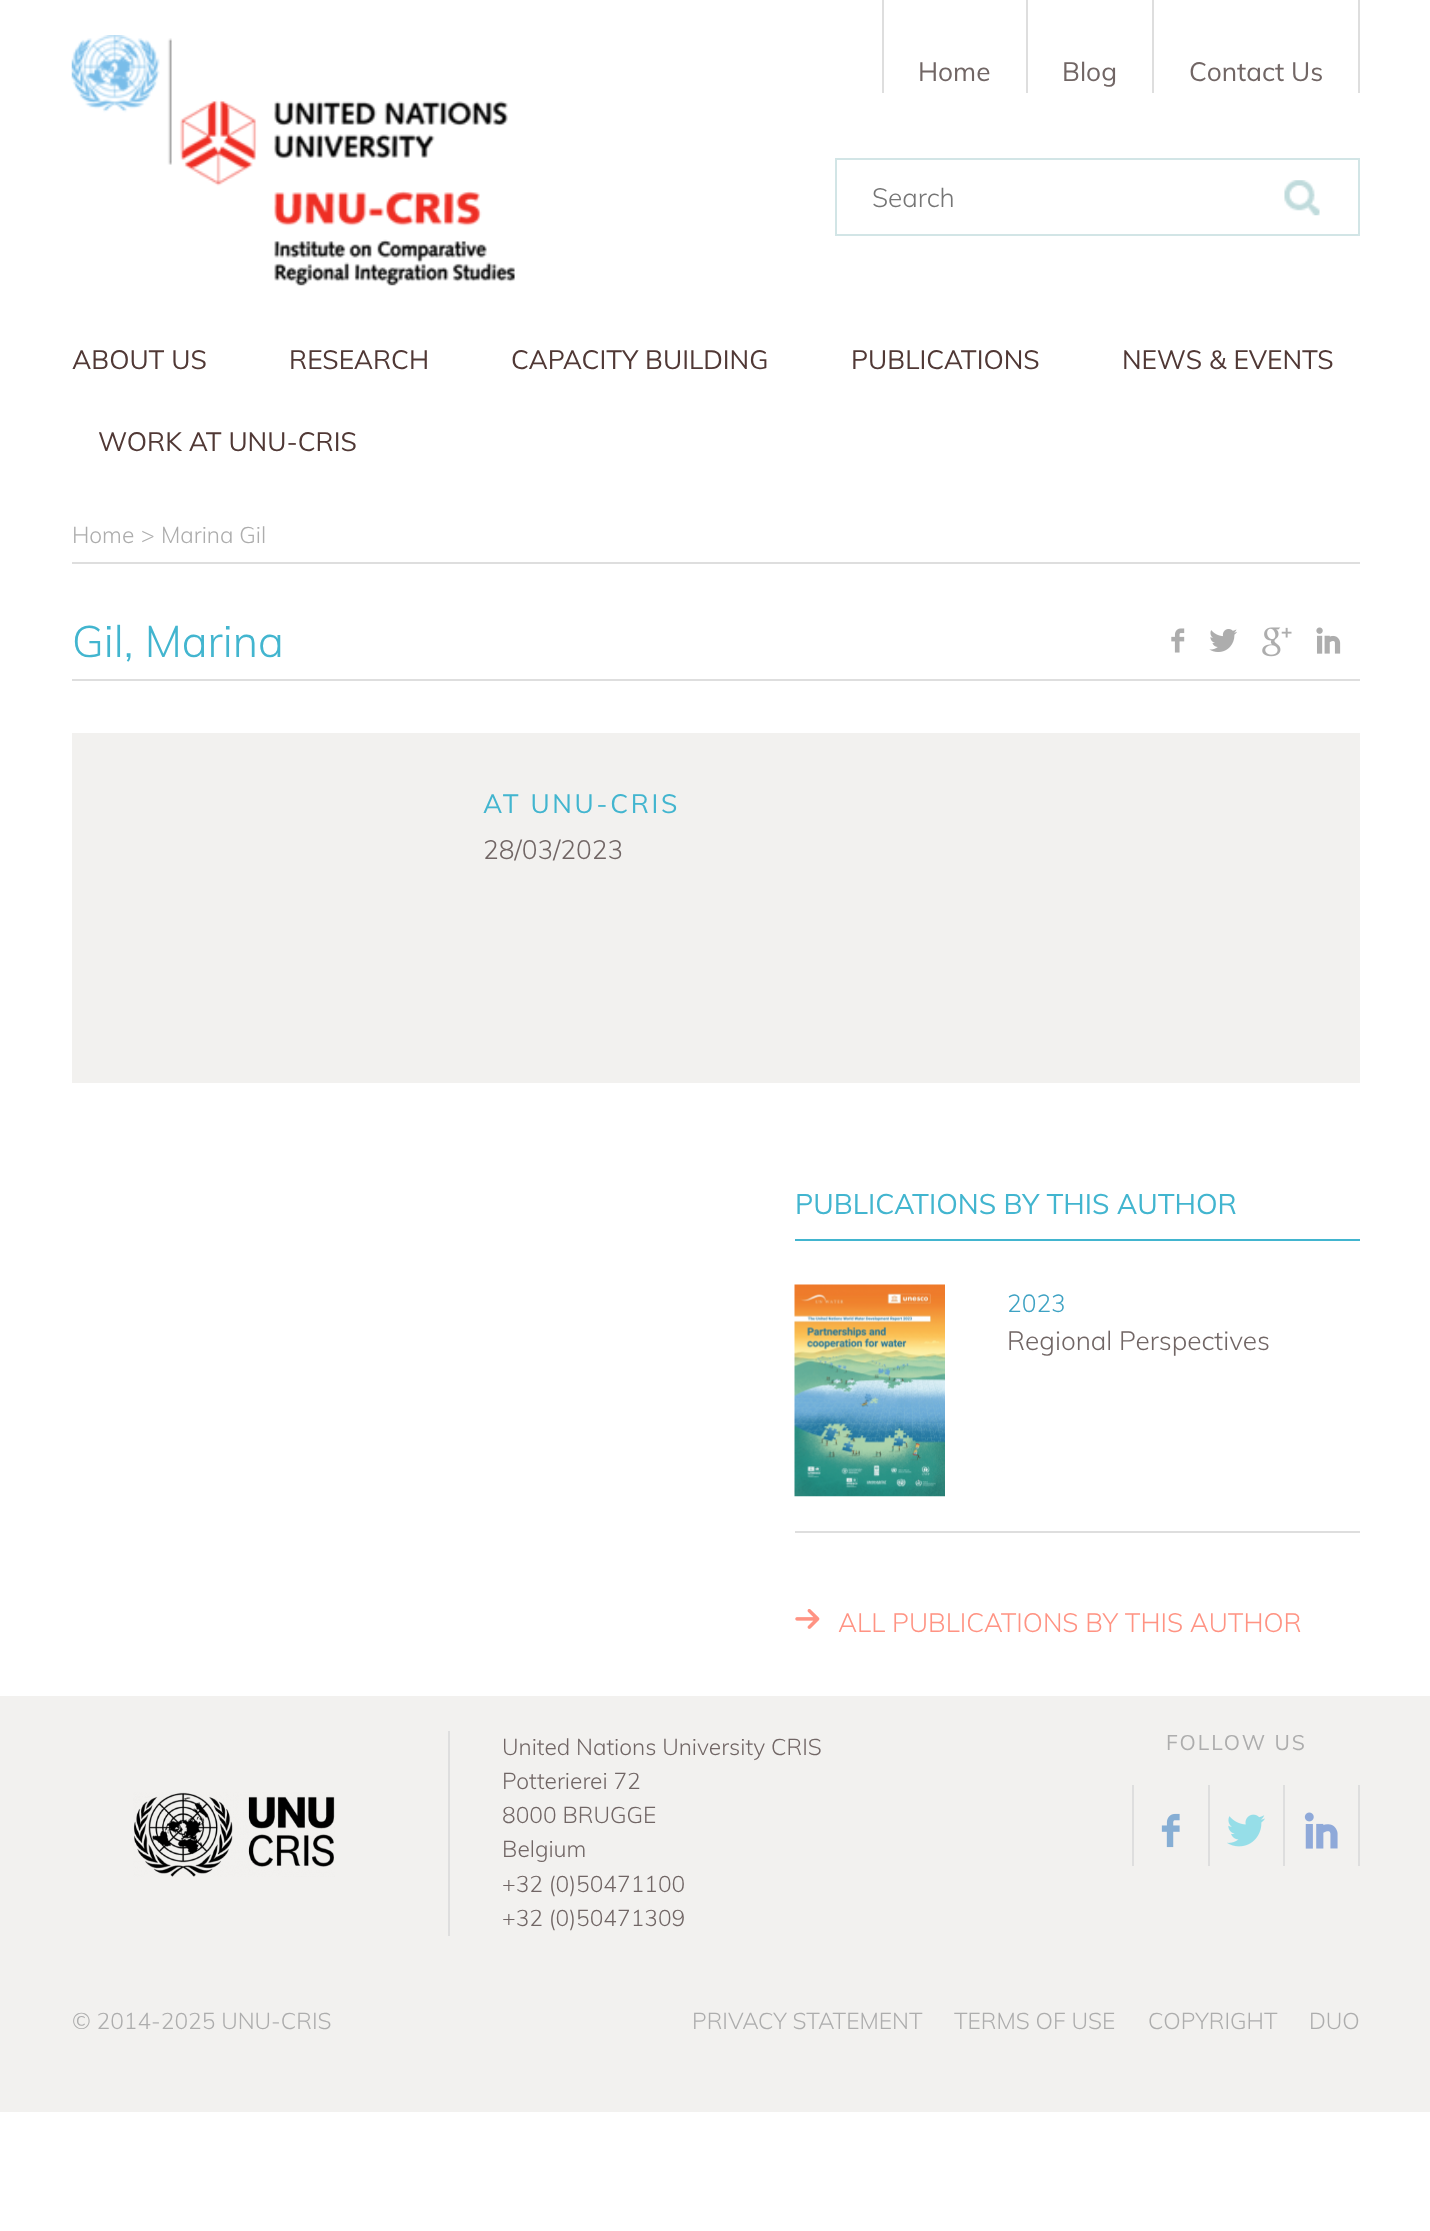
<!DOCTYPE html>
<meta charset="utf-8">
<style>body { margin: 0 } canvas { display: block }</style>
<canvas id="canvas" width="1430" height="2231"></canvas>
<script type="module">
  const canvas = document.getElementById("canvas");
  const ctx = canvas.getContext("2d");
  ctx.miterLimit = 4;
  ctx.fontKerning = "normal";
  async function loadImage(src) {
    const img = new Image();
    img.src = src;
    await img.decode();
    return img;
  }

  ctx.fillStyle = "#ffffff";
  ctx.fillRect(0, 0, 1430, 2231);
  ctx.drawImage(await loadImage("img1.png"), 71, 35, 444, 251);
  ctx.fillStyle = "#dedede";
  ctx.fillRect(882, 0, 2, 93);
  ctx.font = "26.25px Muli";
  ctx.fillStyle = "#716665";
  ctx.fillText("Home", 918, 81);
  ctx.fillStyle = "#dedede";
  ctx.fillRect(1026, 0, 2, 93);
  ctx.fillStyle = "#716665";
  ctx.fillText("Blog", 1062, 81);
  ctx.fillStyle = "#dedede";
  ctx.fillRect(1358, 0, 2, 93);
  ctx.fillRect(1152, 0, 2, 93);
  ctx.fillStyle = "#716665";
  ctx.fillText("Contact Us", 1189, 81);
  ctx.fillStyle = "#503835";
  ctx.fillText("ABOUT US", 72, 369);
  ctx.fillText("RESEARCH", 289, 369);
  ctx.fillText("CAPACITY BUILDING", 511, 369);
  ctx.fillText("PUBLICATIONS", 851, 369);
  ctx.fillText("NEWS & EVENTS", 1122, 369);
  ctx.fillText("WORK AT UNU-CRIS", 98, 451);
  ctx.strokeStyle = "#d2e5e6";
  ctx.lineWidth = 2;
  ctx.strokeRect(836, 159, 523, 76);
  ctx.font = "300 26.25px Muli";
  ctx.fillStyle = "#757575";
  ctx.fillText("Search", 872, 207);
  ctx.drawImage(await loadImage("img2.png"), 1284, 180, 36, 36);
  ctx.fillStyle = "#dedede";
  ctx.fillRect(72, 562, 1288, 2);
  ctx.font = "300 22.75px Muli";
  ctx.fillStyle = "#adadad";
  ctx.fillText("Home", 72, 543);
  ctx.fillText(">", 141, 543);
  ctx.fillText("Marina Gil", 161, 543);
  ctx.fillStyle = "#dedede";
  ctx.fillRect(72, 679, 1288, 2);
  ctx.font = "300 43.75px Muli";
  ctx.fillStyle = "#42b5cf";
  ctx.fillText("Gil, Marina", 72, 657);
  ctx.drawImage(await loadImage("img3.png"), 1171, 628, 14, 25);
  ctx.drawImage(await loadImage("img4.png"), 1209, 629, 28, 23);
  ctx.drawImage(await loadImage("img5.png"), 1262, 627, 30, 30);
  ctx.drawImage(await loadImage("img6.png"), 1316, 627, 25, 27);
  ctx.fillStyle = "#f2f1ef";
  ctx.fillRect(72, 733, 1288, 350);
  ctx.letterSpacing = "2.6px";
  ctx.font = "26.25px Muli";
  ctx.fillStyle = "#42b5cf";
  ctx.fillText("AT UNU-CRIS", 483, 813);
  ctx.letterSpacing = "0px";
  ctx.font = "300 26.25px Muli";
  ctx.fillStyle = "#716665";
  ctx.fillText("28/03/2023", 483, 859);
  ctx.fillStyle = "#42b5cf";
  ctx.fillRect(795, 1239, 565, 2);
  ctx.font = "28px Muli";
  ctx.fillText("PUBLICATIONS BY THIS AUTHOR", 795, 1214);
  ctx.fillStyle = "#dedede";
  ctx.fillRect(795, 1531, 565, 2);
  ctx.drawImage(await loadImage("img7.png"), 794, 1284, 151, 213);
  ctx.font = "300 24.5px Muli";
  ctx.fillStyle = "#3ea2c3";
  ctx.fillText("2023", 1007, 1312);
  ctx.font = "300 26.25px Muli";
  ctx.fillStyle = "#716665";
  ctx.fillText("Regional Perspectives", 1007, 1350);
  ctx.drawImage(await loadImage("img8.png"), 795, 1609, 25, 20);
  ctx.fillStyle = "#ff9383";
  ctx.fillText("ALL PUBLICATIONS BY THIS AUTHOR", 838, 1632);
  ctx.fillStyle = "#f2f1ef";
  ctx.fillRect(0, 1696, 1430, 416);
  ctx.drawImage(await loadImage("img9.png"), 133, 1792, 202, 85);
  ctx.fillStyle = "#dedede";
  ctx.fillRect(448, 1731, 2, 205);
  ctx.font = "300 22.75px Muli";
  ctx.fillStyle = "#716665";
  ctx.fillText("United Nations University CRIS", 502, 1755);
  ctx.fillText("Potterierei 72", 502, 1789);
  ctx.fillText("8000 BRUGGE", 502, 1823);
  ctx.fillText("Belgium", 502, 1857);
  ctx.fillText("+32 (0)50471100", 502, 1892);
  ctx.fillText("+32 (0)50471309", 502, 1926);
  ctx.letterSpacing = "2px";
  ctx.font = "21px Muli";
  ctx.fillStyle = "#adadad";
  ctx.fillText("FOLLOW US", 1166, 1750);
  ctx.fillStyle = "#dedede";
  ctx.fillRect(1132, 1785, 2, 81);
  ctx.drawImage(await loadImage("img10.png"), 1161, 1813, 19, 35);
  ctx.fillRect(1208, 1785, 2, 81);
  ctx.drawImage(await loadImage("img11.png"), 1227, 1814, 38, 33);
  ctx.fillRect(1358, 1785, 2, 81);
  ctx.fillRect(1283, 1785, 2, 81);
  ctx.drawImage(await loadImage("img12.png"), 1304, 1812, 34, 37);
  ctx.letterSpacing = "0px";
  ctx.font = "300 22.75px Muli";
  ctx.fillStyle = "#adadad";
  ctx.fillText("© 2014-2025 UNU-CRIS", 72, 2029);
  ctx.fillText("PRIVACY STATEMENT", 692, 2029);
  ctx.fillText("TERMS OF USE", 954, 2029);
  ctx.fillText("COPYRIGHT", 1148, 2029);
  ctx.fillText("DUO", 1309, 2029);
</script>
